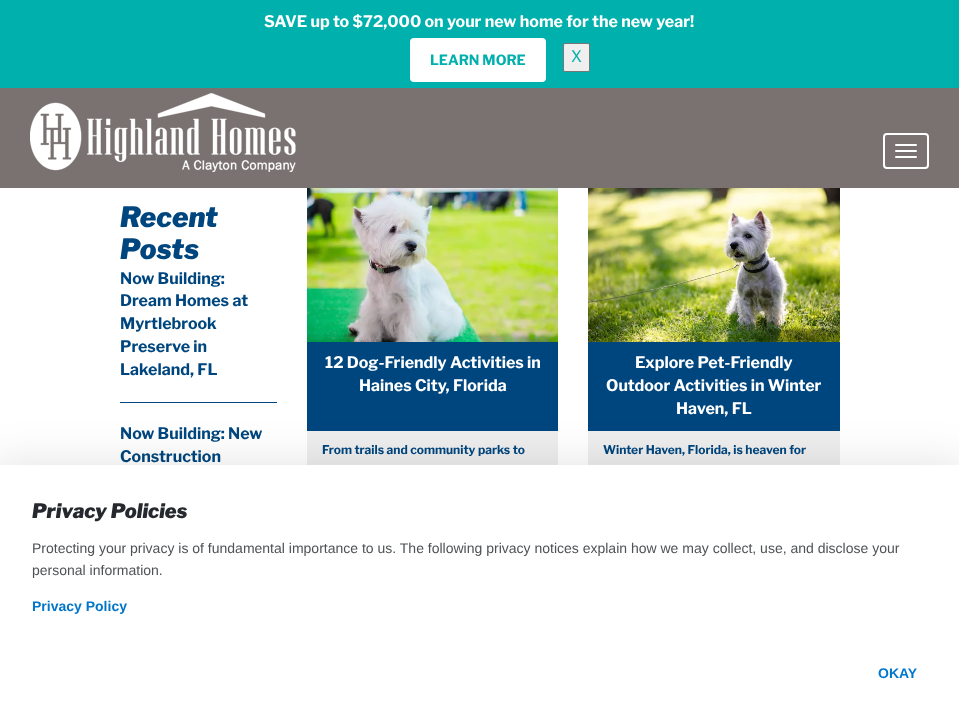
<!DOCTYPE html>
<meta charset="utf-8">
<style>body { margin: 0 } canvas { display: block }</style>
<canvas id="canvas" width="959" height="708"></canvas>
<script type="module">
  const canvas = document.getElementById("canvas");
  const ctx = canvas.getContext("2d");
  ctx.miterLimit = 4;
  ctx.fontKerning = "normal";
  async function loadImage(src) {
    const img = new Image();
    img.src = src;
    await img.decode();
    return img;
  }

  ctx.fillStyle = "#ffffff";
  ctx.fillRect(0, 0, 959, 708);
  ctx.fillStyle = "#7a7271";
  ctx.fillRect(0, 88, 959, 100);
  ctx.fillStyle = "#00b0ac";
  ctx.fillRect(0, 0, 959, 88);
  ctx.font = "bold 16px Libre Franklin";
  ctx.fillStyle = "#ffffff";
  ctx.fillText("SAVE up to $72,000 on your new home for the new year!", 264, 27);
  ctx.beginPath();
  ctx.roundRect(410, 38, 136, 44, 4);
  ctx.fill();
  ctx.font = "bold 14px Libre Franklin";
  ctx.fillStyle = "#00b0ac";
  ctx.fillText("LEARN MORE", 430, 65);
  ctx.fillStyle = "#efefef";
  ctx.beginPath();
  ctx.roundRect(563.5, 43.5, 26, 28, 1.5);
  ctx.fill();
  ctx.strokeStyle = "#767676";
  ctx.stroke();
  ctx.font = "16px Libre Franklin";
  ctx.fillStyle = "#00b0ac";
  ctx.fillText("X", 571, 62);
  ctx.drawImage(await loadImage("img1.png"), 30, 93, 266, 79);
  ctx.beginPath();
  ctx.roundRect(884, 134, 44, 34, 3);
  ctx.strokeStyle = "#ffffff";
  ctx.lineWidth = 2;
  ctx.stroke();
  ctx.fillStyle = "#ffffff";
  ctx.beginPath();
  ctx.roundRect(895, 144, 22, 2, 1);
  ctx.fill();
  ctx.beginPath();
  ctx.roundRect(895, 150, 22, 2, 1);
  ctx.fill();
  ctx.beginPath();
  ctx.roundRect(895, 156, 22, 2, 1);
  ctx.fill();
  ctx.font = "italic 900 28px Libre Franklin";
  ctx.fillStyle = "#00467e";
  ctx.fillText("Recent", 120, 227);
  ctx.fillText("Posts", 120, 259);
  ctx.font = "bold 16px Libre Franklin";
  ctx.fillText("Now Building:", 120, 284);
  ctx.fillText("Dream Homes at", 120, 306);
  ctx.fillText("Myrtlebrook", 120, 329);
  ctx.fillText("Preserve in", 120, 352);
  ctx.fillText("Lakeland, FL", 120, 375);
  ctx.fillRect(120, 402, 157, 1);
  ctx.fillText("Now Building: New", 120, 439);
  ctx.fillText("Construction", 120, 462);
  ctx.drawImage(await loadImage("img2.png"), 307, 188, 251, 154);
  ctx.fillRect(307, 342, 251, 89);
  ctx.fillStyle = "#ffffff";
  ctx.fillText("12 Dog-Friendly Activities in", 325, 368);
  ctx.fillText("Haines City, Florida", 359, 391);
  ctx.fillStyle = "#eeeeee";
  ctx.fillRect(307, 431, 251, 34);
  ctx.font = "bold 12px Libre Franklin";
  ctx.fillStyle = "#00467e";
  ctx.fillText("From trails and community parks to", 322, 454);
  ctx.drawImage(await loadImage("img3.png"), 588, 188, 252, 154);
  ctx.fillRect(588, 342, 252, 89);
  ctx.font = "bold 16px Libre Franklin";
  ctx.fillStyle = "#ffffff";
  ctx.fillText("Explore Pet-Friendly", 635, 368);
  ctx.fillText("Outdoor Activities in Winter", 606, 391);
  ctx.fillText("Haven, FL", 676, 414);
  ctx.fillStyle = "#eeeeee";
  ctx.fillRect(588, 431, 252, 34);
  ctx.font = "bold 12px Libre Franklin";
  ctx.fillStyle = "#00467e";
  ctx.fillText("Winter Haven, Florida, is heaven for", 603, 454);
  ctx.fillStyle = "rgba(0, 0, 0, 0.12)";
  ctx.filter = "blur(23px)";
  ctx.beginPath();
  ctx.rect(-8, 466, 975, 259);
  ctx.fill();
  ctx.filter = "none";
  ctx.fillStyle = "#ffffff";
  ctx.fillRect(0, 465, 959, 243);
  ctx.font = "italic 900 20px Libre Franklin";
  ctx.fillStyle = "#25292d";
  ctx.fillText("Privacy Policies", 32, 518);
  ctx.font = "14px Liberation Sans";
  ctx.fillStyle = "#4e5255";
  ctx.fillText("Protecting your privacy is of fundamental importance to us. The following privacy notices explain how we may collect, use, and disclose your", 32, 553);
  ctx.fillText("personal information.", 32, 575);
  ctx.font = "bold 14px Liberation Sans";
  ctx.fillStyle = "#0075c9";
  ctx.fillText("Privacy Policy", 32, 611);
  ctx.fillStyle = "#0077cf";
  ctx.fillText("OKAY", 878, 678);
</script>
